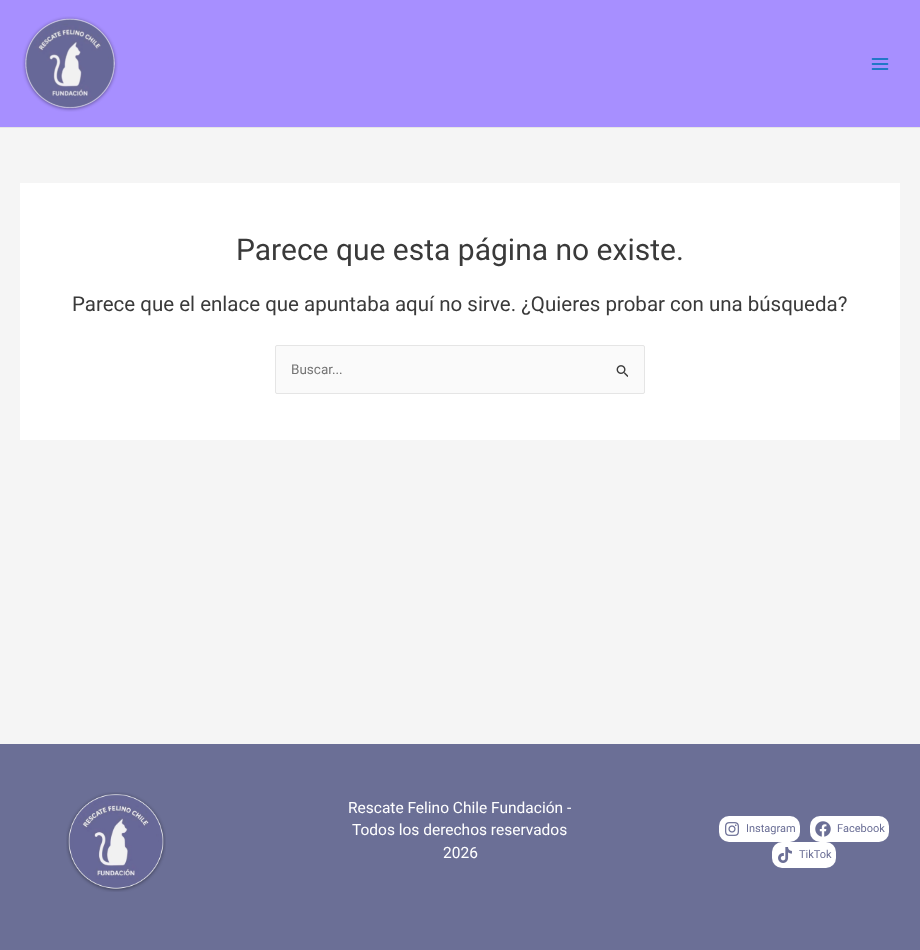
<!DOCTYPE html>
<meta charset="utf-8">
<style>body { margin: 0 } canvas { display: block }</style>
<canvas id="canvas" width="920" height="950"></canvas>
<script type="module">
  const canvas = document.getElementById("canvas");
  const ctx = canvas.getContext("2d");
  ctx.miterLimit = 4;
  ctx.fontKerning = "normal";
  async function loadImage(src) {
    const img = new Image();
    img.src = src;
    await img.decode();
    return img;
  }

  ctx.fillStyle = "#f5f5f5";
  ctx.fillRect(0, 0, 920, 950);
  ctx.fillStyle = "#a78fff";
  ctx.fillRect(0, 0, 920, 127);
  ctx.fillStyle = "#e5e5e5";
  ctx.fillRect(0, 127, 920, 1);
  ctx.drawImage(await loadImage("img1.png"), 22, 16, 96, 96);
  ctx.drawImage(await loadImage("img2.png"), 871, 58, 18, 12);
  ctx.fillStyle = "#ffffff";
  ctx.fillRect(20, 183, 880, 257);
  ctx.font = "30px Roboto";
  ctx.fillStyle = "#3a3a3a";
  ctx.fillText("Parece que esta página no existe.", 236, 260);
  ctx.font = "20.5px Roboto";
  ctx.fillText("Parece que el enlace que apuntaba aquí no sirve. ¿Quieres probar con una búsqueda?", 72, 311);
  ctx.fillStyle = "#fafafa";
  ctx.beginPath();
  ctx.roundRect(275.5, 345.5, 369, 48, 1.5);
  ctx.fill();
  ctx.strokeStyle = "#e5e5e5";
  ctx.stroke();
  ctx.font = "13.5px Roboto";
  ctx.fillStyle = "#757575";
  ctx.fillText("Buscar...", 291, 374);
  ctx.drawImage(await loadImage("img3.png"), 616, 365, 12, 12);
  ctx.fillStyle = "#6b6f96";
  ctx.fillRect(0, 744, 920, 206);
  ctx.drawImage(await loadImage("img4.png"), 66, 792, 100, 100);
  ctx.font = "15.5px Roboto";
  ctx.fillStyle = "#ffffff";
  ctx.fillText("Rescate Felino Chile Fundación -", 348, 813);
  ctx.fillText("Todos los derechos reservados", 352, 835);
  ctx.fillText("2026", 443, 858);
  ctx.beginPath();
  ctx.roundRect(719, 816, 81, 26, 10);
  ctx.fill();
  ctx.drawImage(await loadImage("img5.png"), 725, 822, 14, 14);
  ctx.font = "11px Roboto";
  ctx.fillStyle = "#6b6f96";
  ctx.fillText("Instagram", 746, 832);
  ctx.fillStyle = "#ffffff";
  ctx.beginPath();
  ctx.roundRect(810, 816, 79, 26, 10);
  ctx.fill();
  ctx.drawImage(await loadImage("img6.png"), 815, 821, 16, 16);
  ctx.fillStyle = "#6b6f96";
  ctx.fillText("Facebook", 837, 832);
  ctx.fillStyle = "#ffffff";
  ctx.beginPath();
  ctx.roundRect(772, 842, 64, 26, 10);
  ctx.fill();
  ctx.drawImage(await loadImage("img7.png"), 778, 847, 14, 16);
  ctx.fillStyle = "#6b6f96";
  ctx.fillText("TikTok", 799, 858);
</script>
